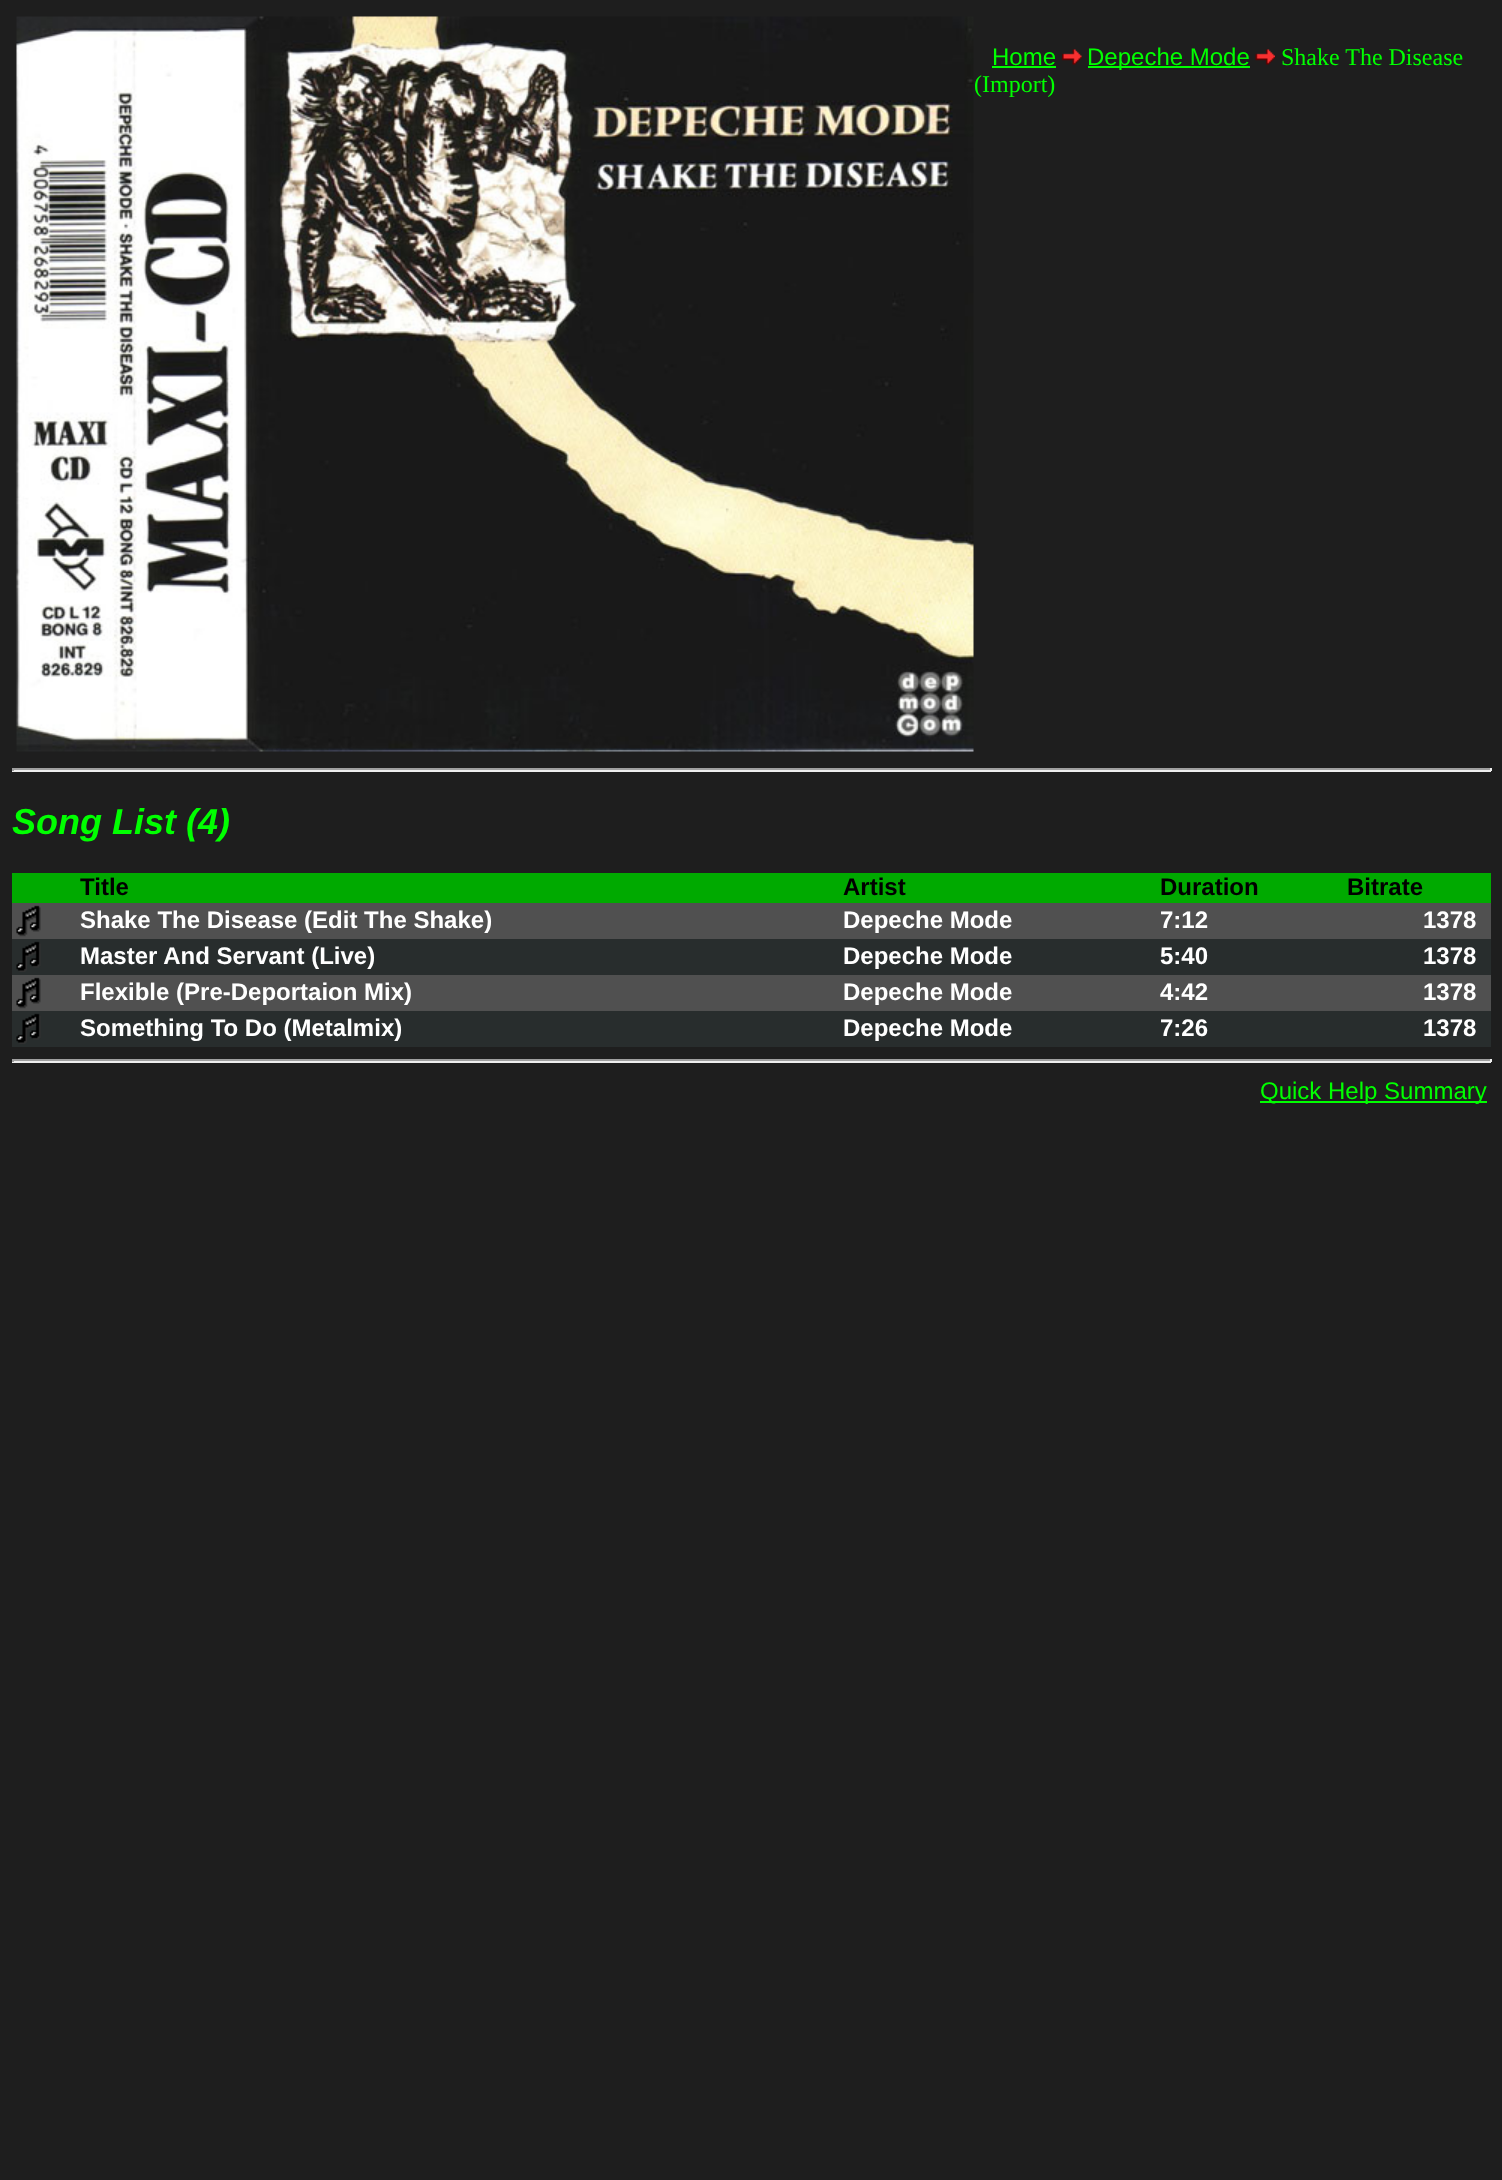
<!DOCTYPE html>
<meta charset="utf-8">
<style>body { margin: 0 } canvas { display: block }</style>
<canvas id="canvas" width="1502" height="2180"></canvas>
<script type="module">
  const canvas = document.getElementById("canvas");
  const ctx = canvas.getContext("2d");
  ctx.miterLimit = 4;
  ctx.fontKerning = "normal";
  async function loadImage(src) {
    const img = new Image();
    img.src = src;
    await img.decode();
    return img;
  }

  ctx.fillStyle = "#1e1e1e";
  ctx.fillRect(0, 0, 1502, 2180);
  ctx.drawImage(await loadImage("img1.png"), 16, 16, 958, 736);
  ctx.font = "24px Liberation Sans";
  ctx.fillStyle = "#00ff00";
  ctx.fillText("Home", 992, 65);
  ctx.fillRect(992, 66, 64, 2);
  ctx.drawImage(await loadImage("img2.png"), 1062, 49, 20, 16);
  ctx.fillRect(1088, 66, 162, 2);
  ctx.fillText("Depeche Mode", 1087, 65);
  ctx.drawImage(await loadImage("img3.png"), 1255, 49, 20, 16);
  ctx.font = "24px Liberation Serif";
  ctx.fillText("Shake The Disease", 1281, 65);
  ctx.fillText("(Import)", 974, 92);
  ctx.fillStyle = "#9f9f9f";
  ctx.fillRect(12, 768, 1479, 2);
  ctx.fillStyle = "#eeeeee";
  ctx.fillRect(1490, 768, 2, 3);
  ctx.fillRect(12, 770, 1479, 2);
  ctx.fillStyle = "#9f9f9f";
  ctx.fillRect(12, 768, 2, 3);
  ctx.font = "italic bold 36px Liberation Sans";
  ctx.fillStyle = "#00ff00";
  ctx.fillText("Song List (4)", 12, 834);
  ctx.fillStyle = "#00aa00";
  ctx.fillRect(12, 873, 1479, 30);
  ctx.font = "bold 24px Liberation Sans";
  ctx.fillStyle = "#000000";
  ctx.fillText("Title", 80, 895);
  ctx.fillText("Artist", 843, 895);
  ctx.fillText("Duration", 1160, 895);
  ctx.fillText("Bitrate", 1347, 895);
  ctx.fillStyle = "#505050";
  ctx.fillRect(12, 903, 1479, 36);
  ctx.drawImage(await loadImage("img4.png"), 16, 905, 25, 32);
  ctx.fillStyle = "#ffffff";
  ctx.fillText("Shake The Disease (Edit The Shake)", 80, 928);
  ctx.fillText("Depeche Mode", 843, 928);
  ctx.fillText("7:12", 1160, 928);
  ctx.fillText("1378", 1423, 928);
  ctx.fillStyle = "#282d2d";
  ctx.fillRect(12, 939, 1479, 36);
  ctx.drawImage(await loadImage("img5.png"), 16, 941, 25, 31);
  ctx.fillStyle = "#ffffff";
  ctx.fillText("Master And Servant (Live)", 80, 964);
  ctx.fillText("Depeche Mode", 843, 964);
  ctx.fillText("5:40", 1160, 964);
  ctx.fillText("1378", 1423, 964);
  ctx.fillStyle = "#505050";
  ctx.fillRect(12, 975, 1479, 36);
  ctx.drawImage(await loadImage("img4.png"), 16, 977, 25, 32);
  ctx.fillStyle = "#ffffff";
  ctx.fillText("Flexible (Pre-Deportaion Mix)", 80, 1000);
  ctx.fillText("Depeche Mode", 843, 1000);
  ctx.fillText("4:42", 1160, 1000);
  ctx.fillText("1378", 1423, 1000);
  ctx.fillStyle = "#282d2d";
  ctx.fillRect(12, 1011, 1479, 36);
  ctx.drawImage(await loadImage("img5.png"), 16, 1013, 25, 31);
  ctx.fillStyle = "#ffffff";
  ctx.fillText("Something To Do (Metalmix)", 80, 1036);
  ctx.fillText("Depeche Mode", 843, 1036);
  ctx.fillText("7:26", 1160, 1036);
  ctx.fillText("1378", 1423, 1036);
  ctx.fillStyle = "#9f9f9f";
  ctx.fillRect(12, 1059, 1479, 2);
  ctx.fillStyle = "#eeeeee";
  ctx.fillRect(1490, 1059, 2, 3);
  ctx.fillRect(12, 1061, 1479, 2);
  ctx.fillStyle = "#9f9f9f";
  ctx.fillRect(12, 1059, 2, 3);
  ctx.fillStyle = "#00ff00";
  ctx.fillRect(1260, 1101, 227, 2);
  ctx.font = "24px Liberation Sans";
  ctx.fillText("Quick Help Summary", 1260, 1099);
</script>
